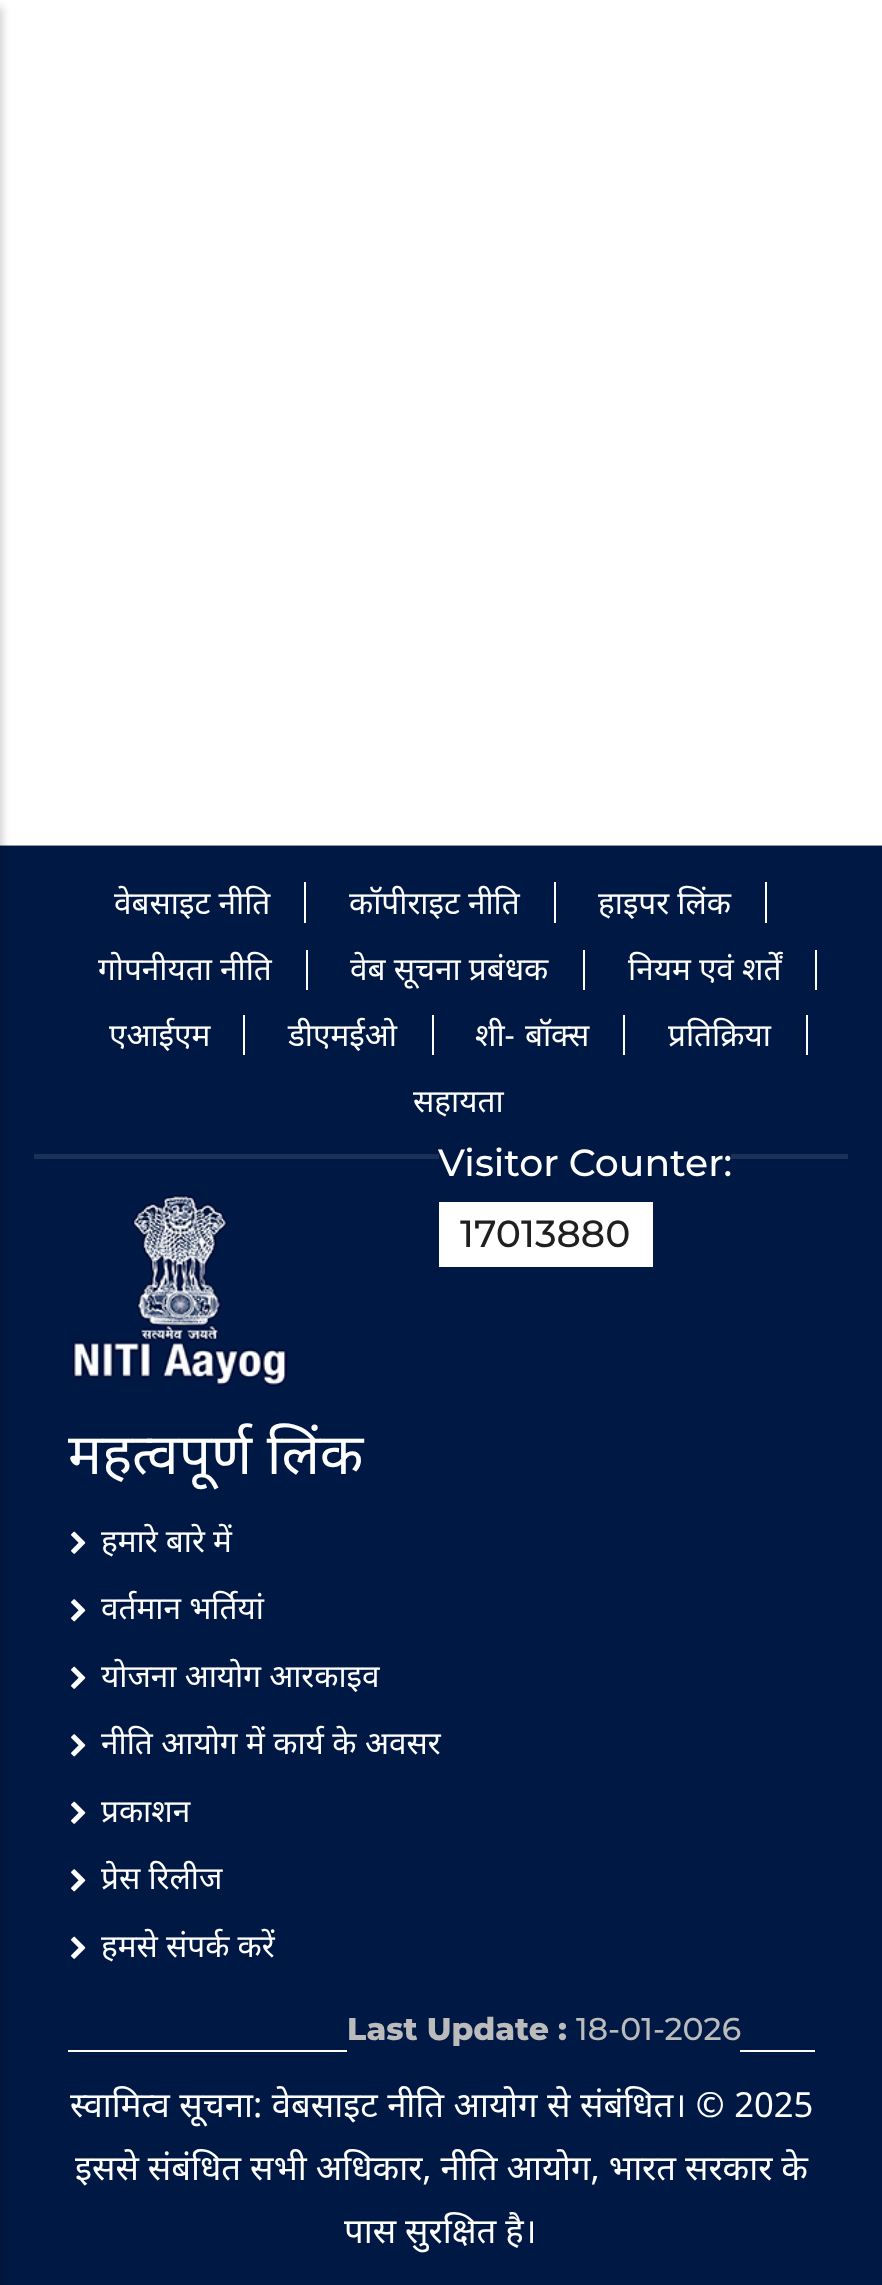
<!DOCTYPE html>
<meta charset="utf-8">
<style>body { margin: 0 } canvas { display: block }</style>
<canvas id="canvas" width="882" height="2285"></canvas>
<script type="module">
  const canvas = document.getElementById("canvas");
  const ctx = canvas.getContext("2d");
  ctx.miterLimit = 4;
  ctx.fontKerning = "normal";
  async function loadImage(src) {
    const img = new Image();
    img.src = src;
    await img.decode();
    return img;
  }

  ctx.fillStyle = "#ffffff";
  ctx.fillRect(0, 0, 882, 2285);
  ctx.drawImage(await loadImage("img1.png"), 0, 845, 882, 1);
  ctx.fillStyle = "#001944";
  ctx.fillRect(0, 846, 882, 1439);
  ctx.fillStyle = "rgba(0, 0, 0, 0.2)";
  ctx.filter = "blur(4.5px)";
  ctx.beginPath();
  ctx.rect(-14, 7, 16, 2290);
  ctx.fill();
  ctx.filter = "none";
  ctx.font = "31.5px Noto Sans";
  ctx.fillStyle = "#ffffff";
  ctx.fillText("वेबसाइट नीति", 114, 914);
  ctx.fillRect(304, 882, 2, 41);
  ctx.fillText("कॉपीराइट नीति", 349, 914);
  ctx.fillRect(554, 882, 2, 41);
  ctx.fillText("हाइपर लिंक", 598, 914);
  ctx.fillRect(765, 882, 2, 41);
  ctx.fillText("गोपनीयता नीति", 98, 980);
  ctx.fillRect(306, 950, 2, 40);
  ctx.fillText("वेब सूचना प्रबंधक", 350, 980);
  ctx.fillRect(583, 950, 2, 40);
  ctx.fillText("नियम एवं शर्तें", 628, 980);
  ctx.fillRect(815, 950, 2, 40);
  ctx.fillText("एआईएम", 109, 1046);
  ctx.fillRect(243, 1015, 2, 40);
  ctx.fillText("डीएमईओ", 288, 1046);
  ctx.fillRect(432, 1015, 2, 40);
  ctx.wordSpacing = "2px";
  ctx.fillText("शी- बॉक्स", 475, 1046);
  ctx.fillRect(623, 1015, 2, 40);
  ctx.wordSpacing = "0px";
  ctx.fillText("प्रतिक्रिया", 668, 1046);
  ctx.fillRect(806, 1015, 2, 40);
  ctx.fillText("सहायता", 413, 1112);
  ctx.fillStyle = "#1a3057";
  ctx.fillRect(34, 1154, 814, 5);
  ctx.fillStyle = "#001944";
  ctx.fillRect(439, 1154, 292, 5);
  ctx.font = "500 37.75px Montserrat";
  ctx.fillStyle = "#ffffff";
  ctx.fillText("Visitor Counter:", 438, 1176);
  ctx.fillRect(439, 1202, 214, 65);
  ctx.fillStyle = "#1f1f1f";
  ctx.fillText("17013880", 460, 1247);
  ctx.drawImage(await loadImage("img2.png"), 72, 1190, 216, 198);
  ctx.font = "56.75px Noto Sans";
  ctx.fillStyle = "#ffffff";
  ctx.fillText("महत्वपूर्ण लिंक", 68, 1474);
  ctx.drawImage(await loadImage("img3.png"), 71, 1531, 15, 23);
  ctx.font = "31.5px Noto Sans";
  ctx.fillText("हमारे बारे में", 101, 1552);
  ctx.drawImage(await loadImage("img4.png"), 71, 1599, 15, 23);
  ctx.fillText("वर्तमान भर्तियां", 101, 1619);
  ctx.drawImage(await loadImage("img3.png"), 71, 1666, 15, 23);
  ctx.fillText("योजना आयोग आरकाइव", 101, 1687);
  ctx.drawImage(await loadImage("img4.png"), 71, 1734, 15, 23);
  ctx.wordSpacing = "0.25px";
  ctx.fillText("नीति आयोग में कार्य के अवसर", 101, 1754);
  ctx.drawImage(await loadImage("img3.png"), 71, 1801, 15, 23);
  ctx.wordSpacing = "0px";
  ctx.fillText("प्रकाशन", 101, 1822);
  ctx.drawImage(await loadImage("img4.png"), 71, 1869, 15, 23);
  ctx.fillText("प्रेस रिलीज", 101, 1889);
  ctx.drawImage(await loadImage("img3.png"), 71, 1936, 15, 23);
  ctx.fillText("हमसे संपर्क करें", 101, 1957);
  ctx.fillRect(68, 2050, 747, 2);
  ctx.wordSpacing = "0.5px";
  ctx.font = "34.65px Noto Sans";
  ctx.fillText("स्वामित्व सूचना: वेबसाइट नीति आयोग से संबंधित। © 2025", 70, 2117);
  ctx.wordSpacing = "0px";
  ctx.fillText("इससे संबंधित सभी अधिकार, नीति आयोग, भारत सरकार के", 75, 2180);
  ctx.fillText("पास सुरक्षित है।", 344, 2243);
  ctx.fillStyle = "#001944";
  ctx.fillRect(347, 2050, 393, 2);
  ctx.font = "800 31.5px Montserrat";
  ctx.fillStyle = "#bbbbbb";
  ctx.fillText("Last Update :", 347, 2040);
  ctx.font = "500 31.5px Montserrat";
  ctx.fillText("18-01-2026", 576, 2040);
</script>
